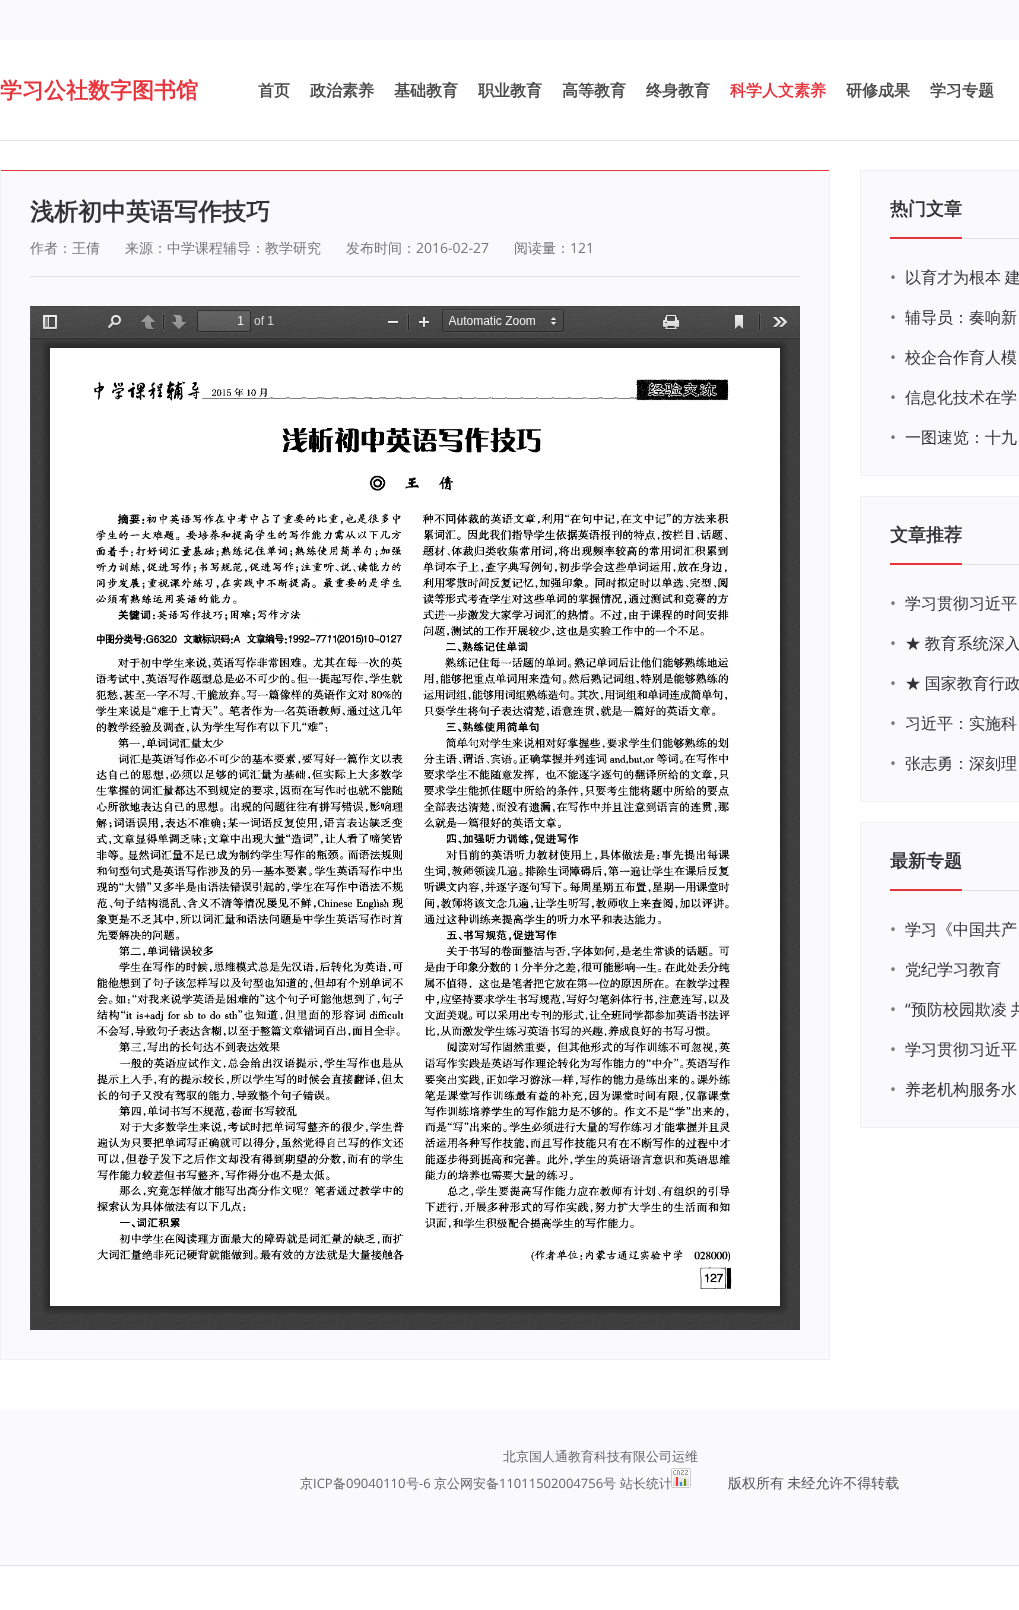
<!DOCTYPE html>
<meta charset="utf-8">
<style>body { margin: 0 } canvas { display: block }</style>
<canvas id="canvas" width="1019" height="1610"></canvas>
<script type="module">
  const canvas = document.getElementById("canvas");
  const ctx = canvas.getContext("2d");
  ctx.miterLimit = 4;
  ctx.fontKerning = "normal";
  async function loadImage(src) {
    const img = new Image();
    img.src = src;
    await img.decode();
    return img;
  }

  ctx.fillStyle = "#ffffff";
  ctx.fillRect(0, 0, 1019, 1610);
  ctx.fillStyle = "#fafafd";
  ctx.fillRect(0, 0, 1019, 40);
  ctx.font = "bold 22px WenQuanYi Zen Hei";
  ctx.fillStyle = "#e8343d";
  ctx.fillText("学习公社数字图书馆", 0, 98);
  ctx.font = "bold 16px WenQuanYi Zen Hei";
  ctx.fillStyle = "#4b4b4b";
  ctx.fillText("首页", 258, 96);
  ctx.fillText("政治素养", 310, 96);
  ctx.fillText("基础教育", 394, 96);
  ctx.fillText("职业教育", 478, 96);
  ctx.fillText("高等教育", 562, 96);
  ctx.fillText("终身教育", 646, 96);
  ctx.fillStyle = "#e8343d";
  ctx.fillText("科学人文素养", 730, 96);
  ctx.fillStyle = "#4b4b4b";
  ctx.fillText("研修成果", 846, 96);
  ctx.fillText("学习专题", 930, 96);
  ctx.fillStyle = "#e1e1e1";
  ctx.fillRect(0, 140, 1019, 1);
  ctx.fillStyle = "#fafafd";
  ctx.fillRect(1, 171, 828, 1188);
  ctx.fillStyle = "#e8343d";
  ctx.fillRect(0, 170, 830, 1);
  ctx.fillStyle = "#f0f0f0";
  ctx.fillRect(829, 170, 1, 1190);
  ctx.fillRect(0, 1359, 830, 1);
  ctx.fillRect(0, 170, 1, 1190);
  ctx.font = "bold 24px WenQuanYi Zen Hei";
  ctx.fillStyle = "#333333";
  ctx.fillText("浅析初中英语写作技巧", 30, 220);
  ctx.fillStyle = "#e1e1e1";
  ctx.fillRect(30, 276, 770, 1);
  ctx.font = "500 14px WenQuanYi Zen Hei";
  ctx.fillStyle = "#777777";
  ctx.fillText("作者：王倩", 30, 253);
  ctx.fillText("来源：中学课程辅导：教学研究", 125, 253);
  ctx.fillText("发布时间：", 346, 253);
  ctx.font = "14px Open Sans";
  ctx.fillText("2016-02-27", 416, 253);
  ctx.font = "500 14px WenQuanYi Zen Hei";
  ctx.fillText("阅读量：", 514, 253);
  ctx.font = "14px Open Sans";
  ctx.fillText("121", 570, 253);
  ctx.drawImage(await loadImage("img1.png"), 30, 306, 770, 1024);
  ctx.fillStyle = "#fafafd";
  ctx.beginPath();
  ctx.rect(860.5, 170.5, 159, 305);
  ctx.fill();
  ctx.strokeStyle = "#f0f0f0";
  ctx.stroke();
  ctx.fillStyle = "#e1e1e1";
  ctx.fillRect(962, 238, 57, 1);
  ctx.fillStyle = "#e8343d";
  ctx.fillRect(890, 237, 72, 2);
  ctx.font = "bold 18px WenQuanYi Zen Hei";
  ctx.fillStyle = "#333333";
  ctx.fillText("热门文章", 890, 215);
  ctx.font = "16px Open Sans";
  ctx.fillStyle = "#777777";
  ctx.fillText("•", 890, 283);
  ctx.wordSpacing = "-1px";
  ctx.font = "500 16px WenQuanYi Zen Hei";
  ctx.fillStyle = "#333333";
  ctx.fillText("以育才为根本 建", 905, 283);
  ctx.wordSpacing = "0px";
  ctx.font = "16px Open Sans";
  ctx.fillStyle = "#777777";
  ctx.fillText("•", 890, 323);
  ctx.font = "500 16px WenQuanYi Zen Hei";
  ctx.fillStyle = "#333333";
  ctx.fillText("辅导员：奏响新", 905, 323);
  ctx.font = "16px Open Sans";
  ctx.fillStyle = "#777777";
  ctx.fillText("•", 890, 363);
  ctx.font = "500 16px WenQuanYi Zen Hei";
  ctx.fillStyle = "#333333";
  ctx.fillText("校企合作育人模", 905, 363);
  ctx.font = "16px Open Sans";
  ctx.fillStyle = "#777777";
  ctx.fillText("•", 890, 403);
  ctx.font = "500 16px WenQuanYi Zen Hei";
  ctx.fillStyle = "#333333";
  ctx.fillText("信息化技术在学", 905, 403);
  ctx.font = "16px Open Sans";
  ctx.fillStyle = "#777777";
  ctx.fillText("•", 890, 443);
  ctx.font = "500 16px WenQuanYi Zen Hei";
  ctx.fillStyle = "#333333";
  ctx.fillText("一图速览：十九", 905, 443);
  ctx.fillStyle = "#fafafd";
  ctx.beginPath();
  ctx.rect(860.5, 496.5, 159, 305);
  ctx.fill();
  ctx.stroke();
  ctx.fillStyle = "#e1e1e1";
  ctx.fillRect(962, 564, 57, 1);
  ctx.fillStyle = "#e8343d";
  ctx.fillRect(890, 563, 72, 2);
  ctx.font = "bold 18px WenQuanYi Zen Hei";
  ctx.fillStyle = "#333333";
  ctx.fillText("文章推荐", 890, 541);
  ctx.font = "16px Open Sans";
  ctx.fillStyle = "#777777";
  ctx.fillText("•", 890, 609);
  ctx.font = "500 16px WenQuanYi Zen Hei";
  ctx.fillStyle = "#333333";
  ctx.fillText("学习贯彻习近平", 905, 609);
  ctx.font = "16px Open Sans";
  ctx.fillStyle = "#777777";
  ctx.fillText("•", 890, 649);
  ctx.wordSpacing = "-1px";
  ctx.font = "500 16px WenQuanYi Zen Hei";
  ctx.fillStyle = "#333333";
  ctx.fillText("★ 教育系统深入", 905, 649);
  ctx.wordSpacing = "0px";
  ctx.font = "16px Open Sans";
  ctx.fillStyle = "#777777";
  ctx.fillText("•", 890, 689);
  ctx.wordSpacing = "-1px";
  ctx.font = "500 16px WenQuanYi Zen Hei";
  ctx.fillStyle = "#333333";
  ctx.fillText("★ 国家教育行政", 905, 689);
  ctx.wordSpacing = "0px";
  ctx.font = "16px Open Sans";
  ctx.fillStyle = "#777777";
  ctx.fillText("•", 890, 729);
  ctx.font = "500 16px WenQuanYi Zen Hei";
  ctx.fillStyle = "#333333";
  ctx.fillText("习近平：实施科", 905, 729);
  ctx.font = "16px Open Sans";
  ctx.fillStyle = "#777777";
  ctx.fillText("•", 890, 769);
  ctx.font = "500 16px WenQuanYi Zen Hei";
  ctx.fillStyle = "#333333";
  ctx.fillText("张志勇：深刻理", 905, 769);
  ctx.fillStyle = "#fafafd";
  ctx.beginPath();
  ctx.rect(860.5, 822.5, 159, 305);
  ctx.fill();
  ctx.stroke();
  ctx.fillStyle = "#e1e1e1";
  ctx.fillRect(962, 890, 57, 1);
  ctx.fillStyle = "#e8343d";
  ctx.fillRect(890, 889, 72, 2);
  ctx.font = "bold 18px WenQuanYi Zen Hei";
  ctx.fillStyle = "#333333";
  ctx.fillText("最新专题", 890, 867);
  ctx.font = "16px Open Sans";
  ctx.fillStyle = "#777777";
  ctx.fillText("•", 890, 935);
  ctx.font = "500 16px WenQuanYi Zen Hei";
  ctx.fillStyle = "#333333";
  ctx.fillText("学习《中国共产", 905, 935);
  ctx.font = "16px Open Sans";
  ctx.fillStyle = "#777777";
  ctx.fillText("•", 890, 975);
  ctx.font = "500 16px WenQuanYi Zen Hei";
  ctx.fillStyle = "#333333";
  ctx.fillText("党纪学习教育", 905, 975);
  ctx.font = "16px Open Sans";
  ctx.fillStyle = "#777777";
  ctx.fillText("•", 890, 1015);
  ctx.fillStyle = "#333333";
  ctx.fillText("“", 905, 1015);
  ctx.wordSpacing = "-1px";
  ctx.font = "500 16px WenQuanYi Zen Hei";
  ctx.fillText("预防校园欺凌 共", 911, 1015);
  ctx.wordSpacing = "0px";
  ctx.font = "16px Open Sans";
  ctx.fillStyle = "#777777";
  ctx.fillText("•", 890, 1055);
  ctx.font = "500 16px WenQuanYi Zen Hei";
  ctx.fillStyle = "#333333";
  ctx.fillText("学习贯彻习近平", 905, 1055);
  ctx.font = "16px Open Sans";
  ctx.fillStyle = "#777777";
  ctx.fillText("•", 890, 1095);
  ctx.font = "500 16px WenQuanYi Zen Hei";
  ctx.fillStyle = "#333333";
  ctx.fillText("养老机构服务水", 905, 1095);
  ctx.fillStyle = "#fafafd";
  ctx.fillRect(0, 1410, 1019, 155);
  ctx.fillStyle = "#e1e1e1";
  ctx.fillRect(0, 1565, 1019, 1);
  ctx.font = "500 13px WenQuanYi Zen Hei";
  ctx.fillStyle = "#666666";
  ctx.fillText("北京国人通教育科技有限公司运维", 503, 1461);
  ctx.fillText("京", 300, 1488);
  ctx.font = "13px Open Sans";
  ctx.fillText("ICP", 313, 1488);
  ctx.font = "500 13px WenQuanYi Zen Hei";
  ctx.fillText("备", 333, 1488);
  ctx.font = "13px Open Sans";
  ctx.fillText("09040110", 346, 1488);
  ctx.font = "500 13px WenQuanYi Zen Hei";
  ctx.fillText("号", 406, 1488);
  ctx.font = "13px Open Sans";
  ctx.fillText("-6", 419, 1488);
  ctx.font = "500 13px WenQuanYi Zen Hei";
  ctx.fillText("京公网安备", 434, 1488);
  ctx.font = "13px Open Sans";
  ctx.fillText("11011502004756", 499, 1488);
  ctx.font = "500 13px WenQuanYi Zen Hei";
  ctx.fillText("号 站长统计", 603, 1488);
  ctx.drawImage(await loadImage("img2.png"), 671, 1468, 20, 20);
  ctx.wordSpacing = "-1px";
  ctx.font = "500 14px WenQuanYi Zen Hei";
  ctx.fillStyle = "#555555";
  ctx.fillText("版权所有 未经允许不得转载", 728, 1488);
</script>
